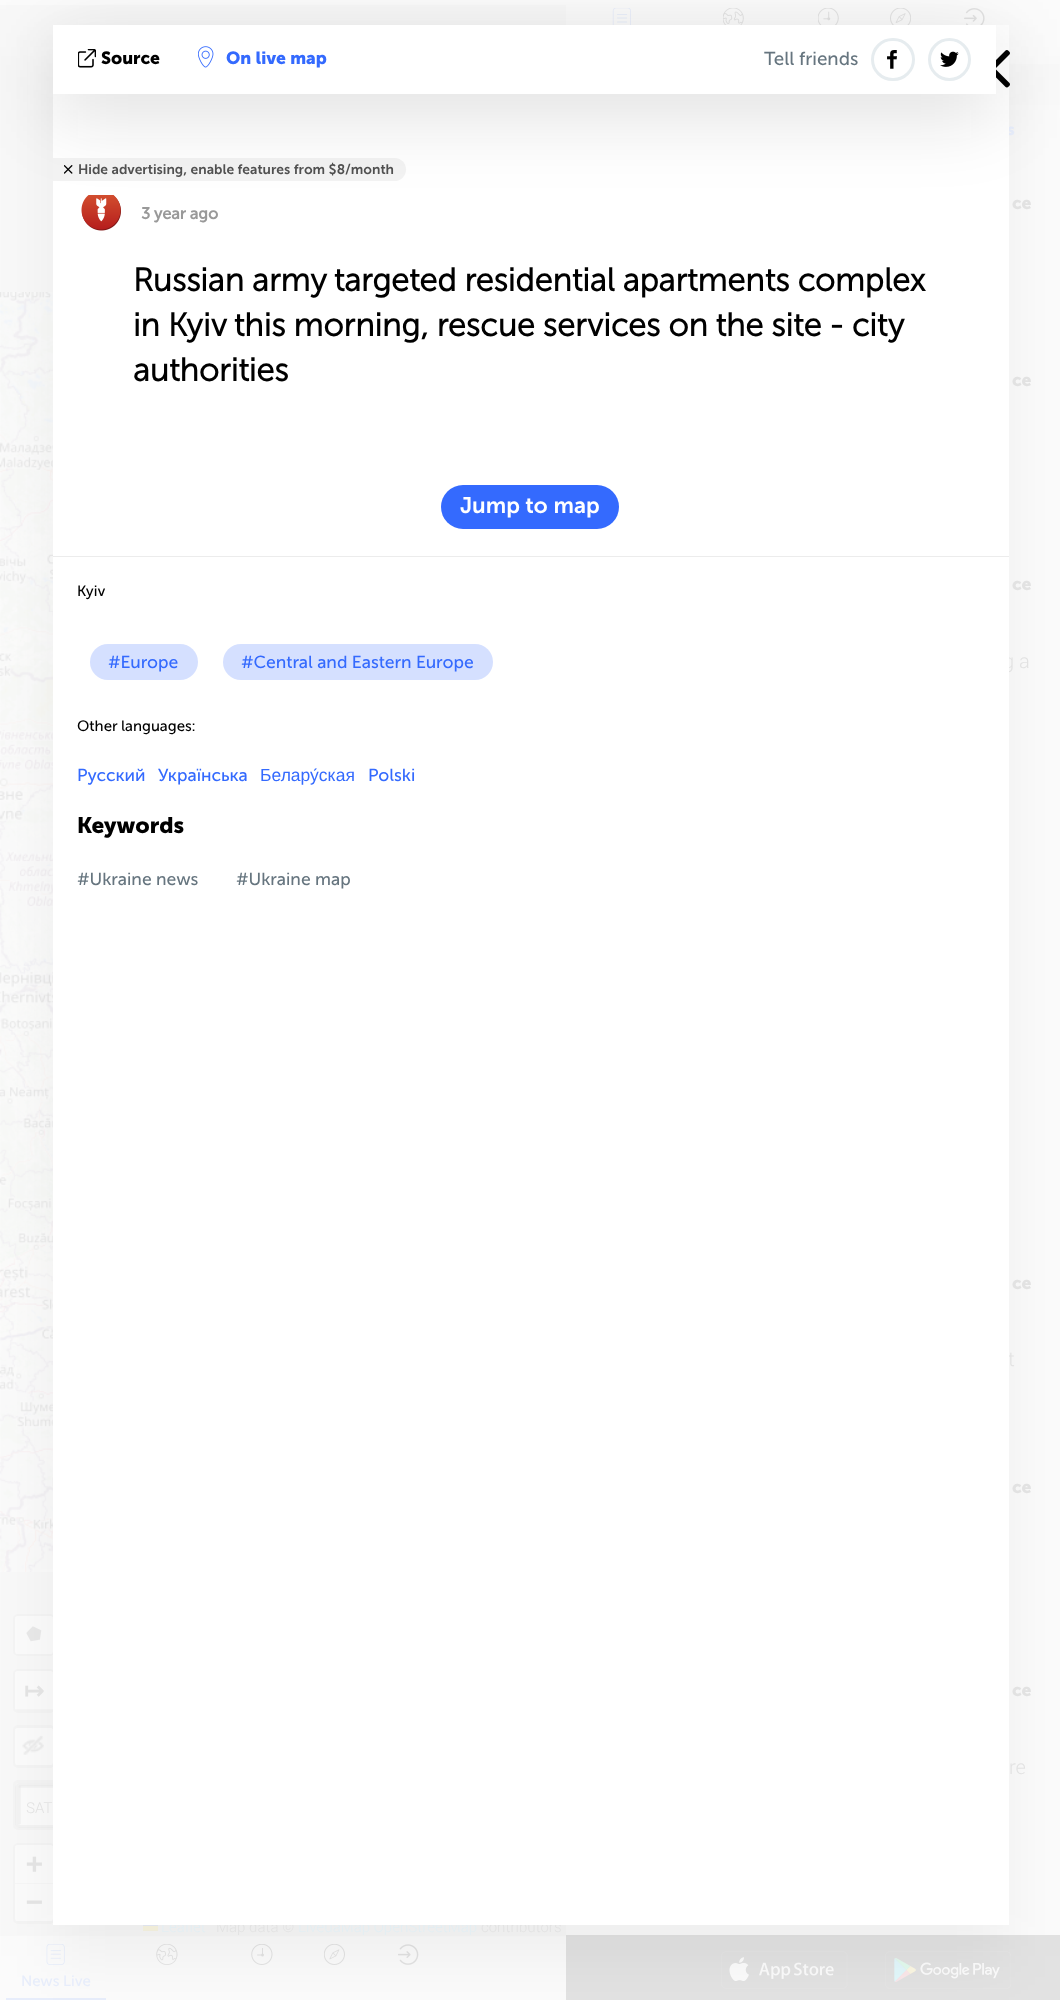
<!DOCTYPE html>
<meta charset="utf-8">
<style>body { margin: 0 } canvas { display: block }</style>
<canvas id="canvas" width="1060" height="2000"></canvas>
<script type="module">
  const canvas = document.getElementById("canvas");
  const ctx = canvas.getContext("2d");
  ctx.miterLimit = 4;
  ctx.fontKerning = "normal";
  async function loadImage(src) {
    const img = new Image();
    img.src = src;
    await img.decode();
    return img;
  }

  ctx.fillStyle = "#fbfbfb";
  ctx.fillRect(0, 0, 1060, 2000);
  ctx.drawImage(await loadImage("img8.png"), 612, 8, 19, 17);
  ctx.drawImage(await loadImage("img9.png"), 723, 8, 21, 17);
  ctx.drawImage(await loadImage("img10.png"), 818, 8, 21, 17);
  ctx.drawImage(await loadImage("img11.png"), 890, 8, 21, 17);
  ctx.drawImage(await loadImage("img12.png"), 964, 8, 21, 17);
  ctx.drawImage(await loadImage("img13.png"), 1009, 64, 51, 54);
  ctx.fillStyle = "#e2e2e2";
  ctx.fillRect(566, 1935, 494, 65);
  ctx.drawImage(await loadImage("img14.png"), 721, 1951, 127, 38);
  ctx.drawImage(await loadImage("img15.png"), 885, 1951, 126, 38);
  ctx.fillStyle = "#f8f8f8";
  ctx.fillRect(0, 5, 566, 1931);
  ctx.drawImage(await loadImage("img16.png"), 0, 292, 53, 320);
  ctx.drawImage(await loadImage("img17.png"), 0, 612, 53, 320);
  ctx.drawImage(await loadImage("img18.png"), 0, 932, 53, 320);
  ctx.drawImage(await loadImage("img19.png"), 0, 1252, 53, 320);
  ctx.beginPath();
  ctx.roundRect(14.5, 1615.5, 39, 39, 3.5);
  ctx.strokeStyle = "#f4f4f4";
  ctx.lineWidth = 3;
  ctx.stroke();
  ctx.fillStyle = "#fbfbfb";
  ctx.beginPath();
  ctx.roundRect(15, 1616, 38, 38, 2.5);
  ctx.fill();
  ctx.drawImage(await loadImage("img20.png"), 26, 1626, 16, 16);
  ctx.beginPath();
  ctx.roundRect(14.5, 1670.5, 39, 41, 3.5);
  ctx.stroke();
  ctx.beginPath();
  ctx.roundRect(15, 1671, 38, 39, [2.5, 2.5, 0, 0]);
  ctx.fill();
  ctx.fillStyle = "#f6f6f6";
  ctx.fillRect(15, 1709, 38, 1);
  ctx.beginPath();
  ctx.roundRect(14.5, 1726.5, 39, 40, 3.5);
  ctx.stroke();
  ctx.fillStyle = "#fbfbfb";
  ctx.beginPath();
  ctx.roundRect(15, 1728, 38, 37, 2.5);
  ctx.fill();
  ctx.drawImage(await loadImage("img21.png"), 22, 1735, 22, 20);
  ctx.beginPath();
  ctx.roundRect(14.5, 1781.5, 49, 47, 3.5);
  ctx.stroke();
  ctx.beginPath();
  ctx.roundRect(16.5, 1784.5, 45, 42, 3.5);
  ctx.strokeStyle = "rgba(226, 226, 226, 0.2)";
  ctx.stroke();
  ctx.beginPath();
  ctx.moveTo(20, 1787.5);
  ctx.lineTo(57.5, 1787.5);
  ctx.lineTo(57.5, 1825);
  ctx.lineTo(20, 1825);
  ctx.lineTo(20, 1822.5);
  ctx.closePath();
  ctx.fill();
  ctx.fillStyle = "rgba(226, 226, 226, 0.2)";
  ctx.fillRect(19, 1785, 40, 3);
  ctx.fillRect(18, 1786, 3, 38);
  ctx.beginPath();
  ctx.roundRect(14.5, 1844.5, 39, 78, 3.5);
  ctx.strokeStyle = "#f4f4f4";
  ctx.stroke();
  ctx.fillStyle = "#fbfbfb";
  ctx.beginPath();
  ctx.roundRect(15, 1845, 38, 39, [2.5, 2.5, 0, 0]);
  ctx.fill();
  ctx.fillStyle = "#f6f6f6";
  ctx.fillRect(15, 1883, 38, 1);
  ctx.fillStyle = "#fbfbfb";
  ctx.beginPath();
  ctx.roundRect(15, 1884, 38, 37, [0, 0, 2.5, 2.5]);
  ctx.fill();
  ctx.fillStyle = "#eaeef8";
  ctx.fillRect(143, 1925, 15, 1);
  ctx.fillStyle = "#fbf7e2";
  ctx.fillRect(143, 1926, 15, 4);
  ctx.fillStyle = "#f8f5e2";
  ctx.fillRect(143, 1930, 15, 1);
  ctx.drawImage(await loadImage("img22.png"), 156, 1944, 22, 21);
  ctx.drawImage(await loadImage("img23.png"), 251, 1944, 22, 21);
  ctx.drawImage(await loadImage("img24.png"), 324, 1944, 21, 21);
  ctx.drawImage(await loadImage("img25.png"), 398, 1944, 21, 21);
  ctx.fillStyle = "#e7edfb";
  ctx.fillRect(6, 1998, 100, 2);
  ctx.drawImage(await loadImage("img26.png"), 46, 1944, 19, 21);
  ctx.fillStyle = "rgba(0, 0, 0, 0.05)";
  ctx.filter = "blur(31px)";
  ctx.beginPath();
  ctx.rect(53, 56, 956, 1900);
  ctx.fill();
  ctx.filter = "none";
  ctx.font = "bold 16.25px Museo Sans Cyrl";
  ctx.fillStyle = "#e7edfb";
  ctx.fillText("s", 1007, 135);
  ctx.font = "300 20px Roboto";
  ctx.fillStyle = "#e2e2e2";
  ctx.fillText("g a", 1003, 668);
  ctx.fillText("t", 1008, 1366);
  ctx.font = "300 15px Roboto";
  ctx.fillStyle = "#e2eef3";
  ctx.fillText("Leaflet", 161, 1932);
  ctx.fillStyle = "#e2e2e2";
  ctx.fillText("Map data ©", 216, 1932);
  ctx.fillStyle = "#e2eef3";
  ctx.fillText("LiveuaMap OpenStreetMap", 298, 1932);
  ctx.fillStyle = "#e2e2e2";
  ctx.fillText("contributors", 481, 1932);
  ctx.fillStyle = "#ffffff";
  ctx.fillRect(53, 25, 956, 1900);
  ctx.drawImage(await loadImage("img5.png"), 996, 50, 14, 38);
  ctx.fillStyle = "#f3f3f3";
  ctx.beginPath();
  ctx.roundRect(53, 158, 353, 23, [0, 11.5, 11.5, 0]);
  ctx.fill();
  ctx.drawImage(await loadImage("img6.png"), 64, 165, 9, 9);
  ctx.drawImage(await loadImage("img7.png"), 81, 195, 40, 36);
  ctx.fillStyle = "rgba(16, 15, 15, 0.14)";
  ctx.filter = "blur(37.5px)";
  ctx.beginPath();
  ctx.rect(53, 44, 943, 69);
  ctx.fill();
  ctx.filter = "none";
  ctx.fillStyle = "#ffffff";
  ctx.fillRect(53, 25, 943, 69);
  ctx.drawImage(await loadImage("img1.png"), 78, 49, 18, 19);
  ctx.font = "bold 17.5px Museo Sans Cyrl";
  ctx.fillStyle = "#000000";
  ctx.fillText("Source", 101, 64);
  ctx.drawImage(await loadImage("img2.png"), 198, 46, 16, 22);
  ctx.fillStyle = "#346afe";
  ctx.fillText("On live map", 226, 64);
  ctx.font = "18.75px Museo Sans Cyrl";
  ctx.fillStyle = "#66757f";
  ctx.fillText("Tell friends", 764, 65);
  ctx.drawImage(await loadImage("img3.png"), 887, 50, 10, 19);
  ctx.beginPath();
  ctx.roundRect(872.5, 39.5, 41, 40, 20);
  ctx.strokeStyle = "#e6ecef";
  ctx.stroke();
  ctx.drawImage(await loadImage("img4.png"), 940, 51, 19, 16);
  ctx.beginPath();
  ctx.arc(949.5, 59.5, 20, 0, Math.PI * 2);
  ctx.stroke();
  ctx.font = "600 13.75px Museo Sans Cyrl";
  ctx.fillStyle = "#505050";
  ctx.fillText("Hide advertising, enable features from $8/month", 78, 174);
  ctx.font = "bold 16.25px 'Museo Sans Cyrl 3'";
  ctx.fillStyle = "#999999";
  ctx.fillText("3 year ago", 141, 219);
  ctx.font = "bold 32.5px 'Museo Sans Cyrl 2'";
  ctx.fillStyle = "#000000";
  ctx.fillText("Russian army targeted residential apartments complex", 133, 291);
  ctx.fillText("in Kyiv this morning, rescue services on the site - city", 133, 336);
  ctx.fillText("authorities", 133, 381);
  ctx.fillStyle = "#ececec";
  ctx.fillRect(53, 556, 956, 1);
  ctx.fillStyle = "#346afe";
  ctx.beginPath();
  ctx.roundRect(441, 485, 178, 44, 22);
  ctx.fill();
  ctx.font = "600 22.5px Museo Sans Cyrl";
  ctx.fillStyle = "#ffffff";
  ctx.fillText("Jump to map", 460, 513);
  ctx.font = "15px Museo Sans Cyrl";
  ctx.fillStyle = "#000000";
  ctx.fillText("Kyiv", 77, 596);
  ctx.fillStyle = "#d5e0ff";
  ctx.beginPath();
  ctx.roundRect(90, 644, 108, 36, 18);
  ctx.fill();
  ctx.font = "17.5px Museo Sans Cyrl";
  ctx.fillStyle = "#346afe";
  ctx.fillText("#Europe", 108, 668);
  ctx.fillStyle = "#d5e0ff";
  ctx.beginPath();
  ctx.roundRect(223, 644, 270, 36, 18);
  ctx.fill();
  ctx.fillStyle = "#346afe";
  ctx.fillText("#Central and Eastern Europe", 241, 668);
  ctx.font = "15px Museo Sans Cyrl";
  ctx.fillStyle = "#000000";
  ctx.fillText("Other languages:", 77, 731);
  ctx.font = "17.5px Museo Sans Cyrl";
  ctx.fillStyle = "#346afe";
  ctx.fillText("Русский", 77, 781);
  ctx.fillText("Українська", 158, 781);
  ctx.font = "17.5px Liberation Sans";
  ctx.fillText("Белару́ская", 260, 781);
  ctx.font = "17.5px Museo Sans Cyrl";
  ctx.fillText("Polski", 368, 781);
  ctx.font = "bold 22.5px Museo Sans Cyrl";
  ctx.fillStyle = "#000000";
  ctx.fillText("Keywords", 77, 833);
  ctx.font = "17.5px Museo Sans Cyrl";
  ctx.fillStyle = "#66757f";
  ctx.fillText("#Ukraine news", 77, 885);
  ctx.fillText("#Ukraine map", 236, 885);
  ctx.font = "bold 17.5px Museo Sans Cyrl";
  ctx.fillStyle = "#e2e2e2";
  ctx.fillText("ce", 1012, 209);
  ctx.fillText("ce", 1012, 386);
  ctx.fillText("ce", 1012, 590);
  ctx.fillText("ce", 1012, 1289);
  ctx.fillText("ce", 1012, 1493);
  ctx.fillText("ce", 1012, 1696);
  ctx.font = "300 20px Roboto";
  ctx.fillText("re", 1009, 1774);
  ctx.font = "bold 24px DejaVu Sans";
  ctx.fillText("↦", 24, 1699);
  ctx.font = "300 15px Roboto";
  ctx.fillText("SAT", 26, 1813);
  ctx.font = "bold 28px DejaVu Sans Mono";
  ctx.fillText("+", 26, 1873);
  ctx.fillText("−", 26, 1911);
  ctx.font = "15px Museo Sans Cyrl";
  ctx.fillStyle = "#e7edfb";
  ctx.fillText("News Live", 21, 1986);
</script>
